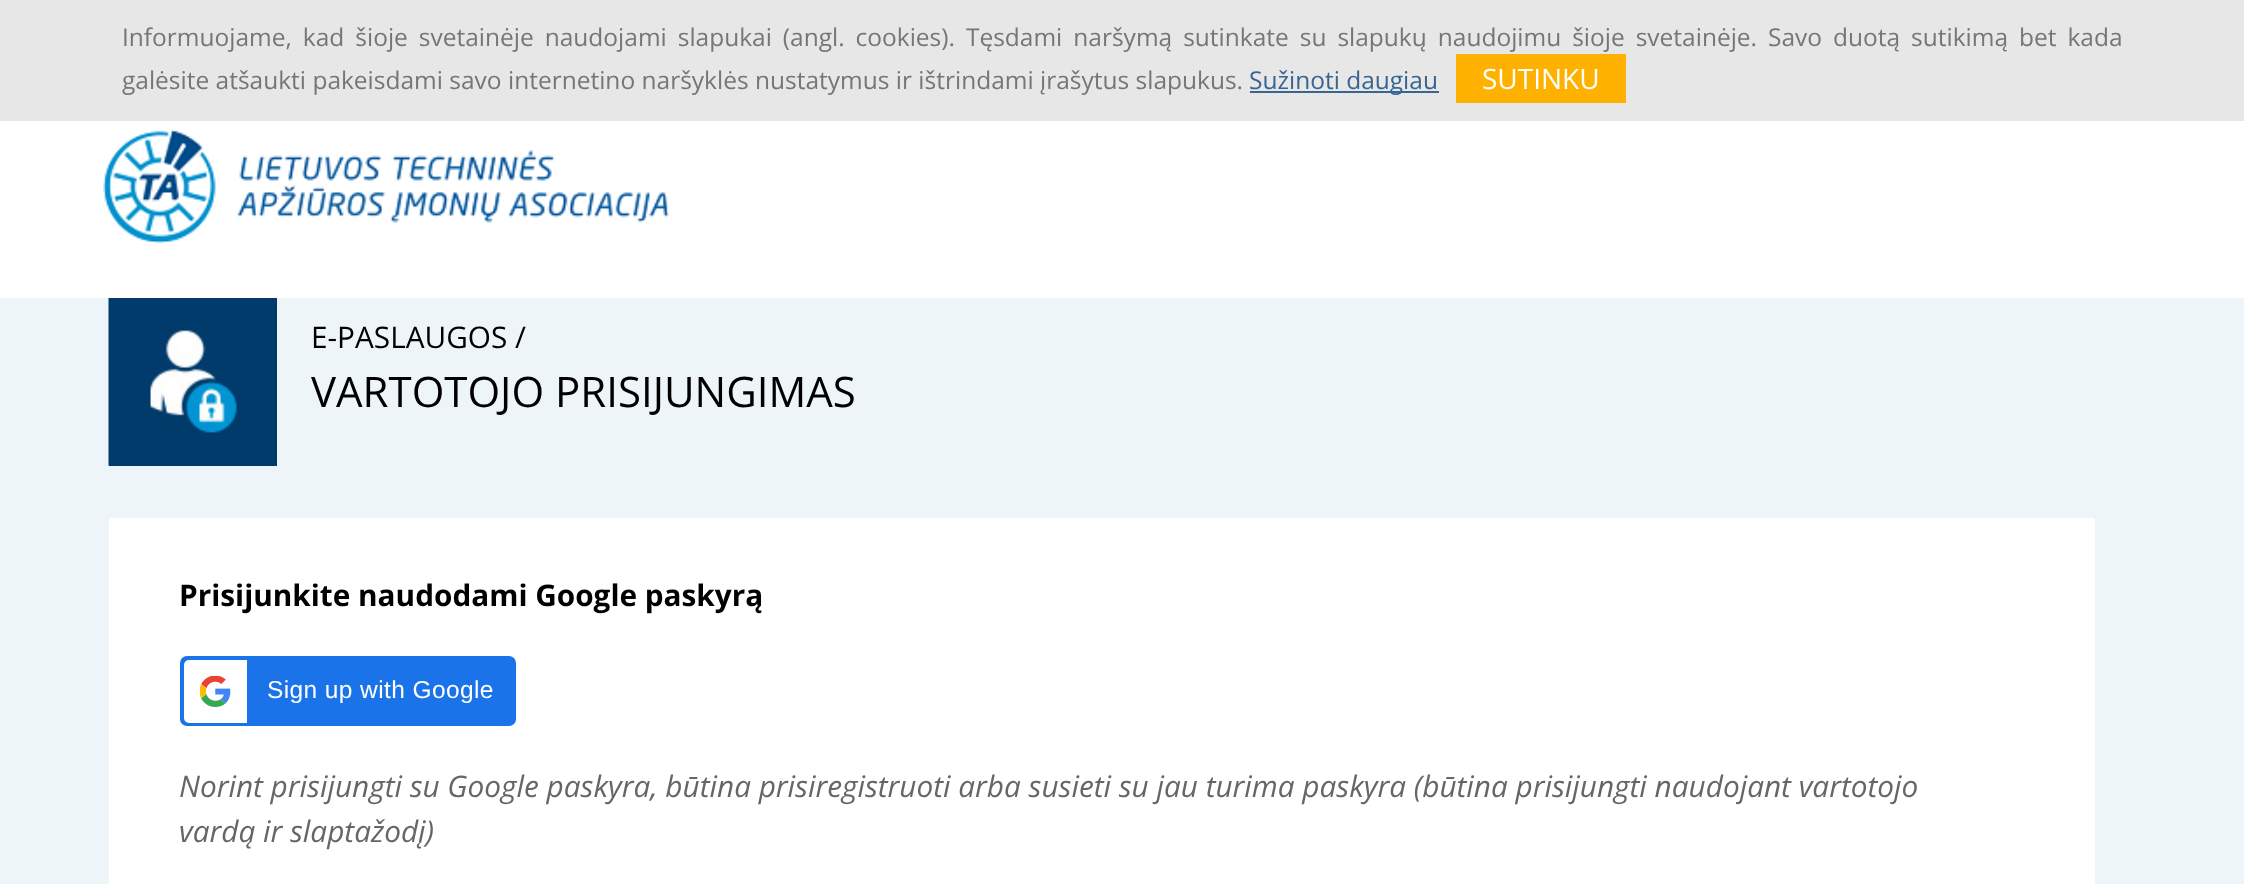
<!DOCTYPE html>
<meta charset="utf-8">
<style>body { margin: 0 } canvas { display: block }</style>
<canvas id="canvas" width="2244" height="884"></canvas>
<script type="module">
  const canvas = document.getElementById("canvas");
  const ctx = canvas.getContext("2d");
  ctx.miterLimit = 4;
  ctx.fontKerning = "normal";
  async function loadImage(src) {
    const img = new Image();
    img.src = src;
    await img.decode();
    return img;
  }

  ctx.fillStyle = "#eef5f9";
  ctx.fillRect(0, 0, 2244, 884);
  ctx.fillStyle = "#e7e7e7";
  ctx.fillRect(0, 0, 2244, 121);
  ctx.wordSpacing = "4.6px";
  ctx.font = "24.5px Open Sans";
  ctx.fillStyle = "#767676";
  ctx.fillText("Informuojame, kad šioje svetainėje naudojami slapukai (angl. cookies). Tęsdami naršymą sutinkate su slapukų naudojimu šioje svetainėje. Savo duotą sutikimą bet kada", 122, 46);
  ctx.wordSpacing = "0px";
  ctx.fillText("galėsite atšaukti pakeisdami savo internetino naršyklės nustatymus ir ištrindami įrašytus slapukus.", 122, 89);
  ctx.fillStyle = "#386592";
  ctx.fillRect(1250, 91, 189, 2);
  ctx.fillText("Sužinoti daugiau", 1249, 89);
  ctx.fillStyle = "#ffb100";
  ctx.fillRect(1456, 54, 170, 49);
  ctx.font = "28px Open Sans";
  ctx.fillStyle = "#ffffff";
  ctx.fillText("SUTINKU", 1482, 89);
  ctx.fillRect(0, 121, 2244, 177);
  ctx.drawImage(await loadImage("img1.png"), 103, 129, 566, 115);
  ctx.fillStyle = "#003b6b";
  ctx.fillRect(109, 298, 168, 168);
  ctx.drawImage(await loadImage("img2.png"), 108, 298, 169, 168);
  ctx.font = "29.75px Open Sans";
  ctx.fillStyle = "#000000";
  ctx.fillText("E-PASLAUGOS /", 311, 348);
  ctx.font = "42px Open Sans";
  ctx.fillText("VARTOTOJO PRISIJUNGIMAS", 311, 407);
  ctx.fillStyle = "#ffffff";
  ctx.fillRect(109, 518, 1986, 366);
  ctx.font = "bold 29.75px Open Sans";
  ctx.fillStyle = "#000000";
  ctx.fillText("Prisijunkite naudodami Google paskyrą", 179, 606);
  ctx.fillStyle = "#1a73e8";
  ctx.beginPath();
  ctx.roundRect(180, 656, 336, 70, 7);
  ctx.fill();
  ctx.fillStyle = "#ffffff";
  ctx.beginPath();
  ctx.roundRect(184, 660, 63, 63, [5, 0, 0, 5]);
  ctx.fill();
  ctx.drawImage(await loadImage("img3.png"), 200, 676, 31, 31);
  ctx.letterSpacing = "0.4px";
  ctx.font = "24.5px Liberation Sans";
  ctx.fillText("Sign up with Google", 267, 698);
  ctx.letterSpacing = "0px";
  ctx.font = "italic 29.75px Open Sans";
  ctx.fillStyle = "#666666";
  ctx.fillText("Norint prisijungti su Google paskyra, būtina prisiregistruoti arba susieti su jau turima paskyra (būtina prisijungti naudojant vartotojo", 179, 797);
  ctx.fillText("vardą ir slaptažodį)", 179, 842);
</script>
